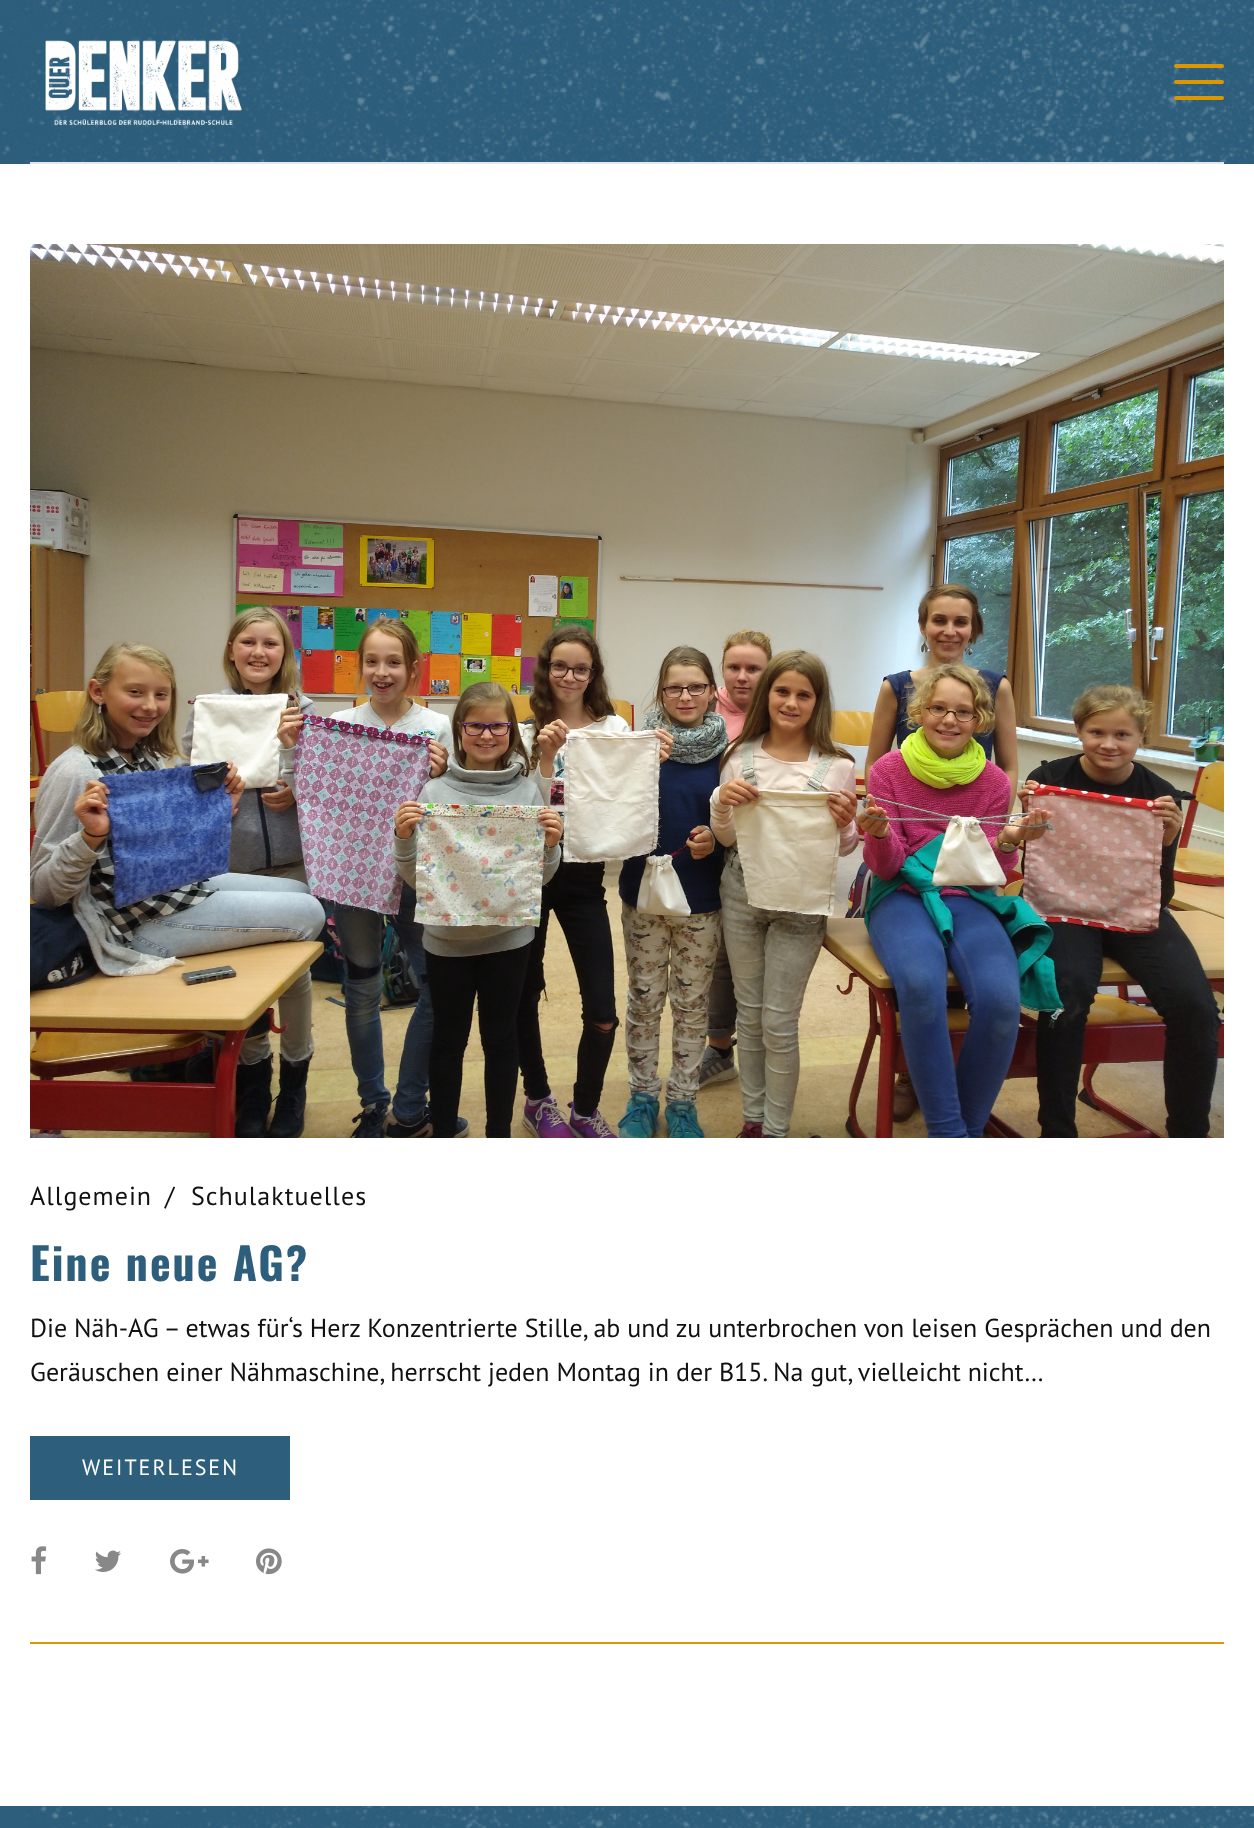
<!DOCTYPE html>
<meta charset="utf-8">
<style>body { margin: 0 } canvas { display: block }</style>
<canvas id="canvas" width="1254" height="1828"></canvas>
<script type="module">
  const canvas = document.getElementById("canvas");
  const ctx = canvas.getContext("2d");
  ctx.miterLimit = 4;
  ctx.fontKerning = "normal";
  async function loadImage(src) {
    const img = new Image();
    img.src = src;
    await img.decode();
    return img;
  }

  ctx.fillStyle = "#ffffff";
  ctx.fillRect(0, 0, 1254, 1828);
  ctx.drawImage(await loadImage("img1.png"), 0, 0, 1254, 164);
  ctx.fillStyle = "#e6e6e6";
  ctx.fillRect(30, 162, 1194, 2);
  ctx.drawImage(await loadImage("img2.png"), 45, 40, 197, 85);
  ctx.fillStyle = "#dc9600";
  ctx.beginPath();
  ctx.roundRect(1174, 64, 50, 4, 2);
  ctx.fill();
  ctx.beginPath();
  ctx.roundRect(1174, 80, 50, 4, 2);
  ctx.fill();
  ctx.beginPath();
  ctx.roundRect(1174, 96, 50, 4, 2);
  ctx.fill();
  ctx.fillRect(30, 1642, 1194, 2);
  ctx.drawImage(await loadImage("img3.png"), 30, 244, 1194, 894);
  ctx.letterSpacing = "1px";
  ctx.font = "26px PT Sans";
  ctx.fillStyle = "#111111";
  ctx.fillText("Allgemein", 30, 1205);
  ctx.letterSpacing = "0px";
  ctx.fillText("/", 165, 1205);
  ctx.letterSpacing = "1px";
  ctx.fillText("Schulaktuelles", 191, 1205);
  ctx.letterSpacing = "2px";
  ctx.font = "bold 44px Oswald";
  ctx.fillStyle = "#2d5e7c";
  ctx.fillText("Eine neue AG?", 30, 1281);
  ctx.letterSpacing = "0px";
  ctx.font = "26px PT Sans";
  ctx.fillStyle = "#111111";
  ctx.fillText("Die Näh-AG – etwas für‘s Herz Konzentrierte Stille, ab und zu unterbrochen von leisen Gesprächen und den", 30, 1337);
  ctx.fillText("Geräuschen einer Nähmaschine, herrscht jeden Montag in der B15. Na gut, vielleicht nicht…", 30, 1381);
  ctx.fillStyle = "#2d5e7c";
  ctx.fillRect(30, 1436, 260, 64);
  ctx.letterSpacing = "2px";
  ctx.font = "22px PT Sans";
  ctx.fillStyle = "#ffffff";
  ctx.fillText("WEITERLESEN", 82, 1475);
  ctx.drawImage(await loadImage("img4.png"), 31, 1546, 16, 29);
  ctx.drawImage(await loadImage("img5.png"), 95, 1550, 26, 22);
  ctx.drawImage(await loadImage("img6.png"), 170, 1549, 39, 25);
  ctx.drawImage(await loadImage("img7.png"), 256, 1548, 26, 27);
  ctx.fillStyle = "#2d5e7c";
  ctx.fillRect(0, 1806, 26, 22);
  ctx.drawImage(await loadImage("img8.png"), 26, 1806, 1228, 22);
</script>
